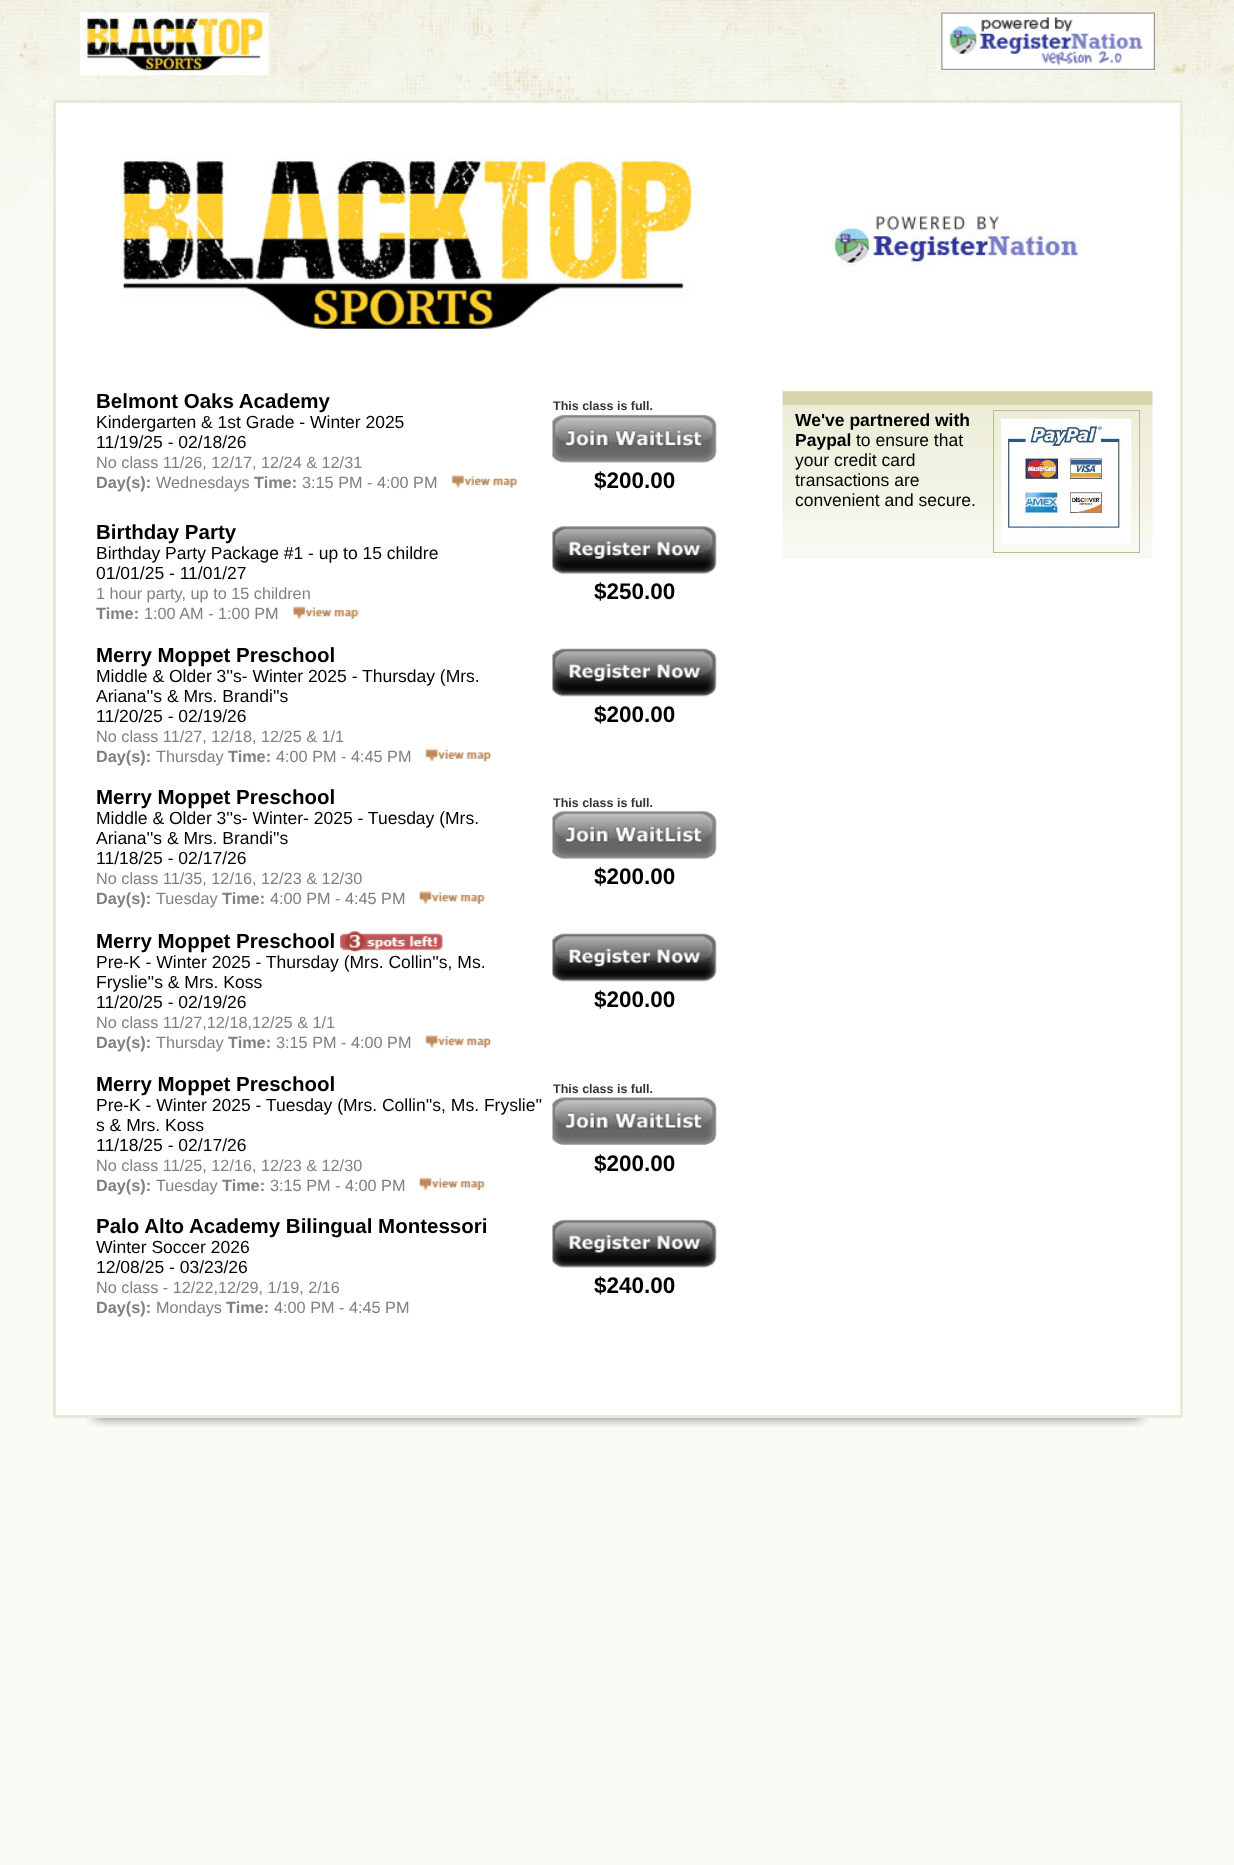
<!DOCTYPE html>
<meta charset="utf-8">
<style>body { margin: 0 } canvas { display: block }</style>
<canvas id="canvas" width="1234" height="1865"></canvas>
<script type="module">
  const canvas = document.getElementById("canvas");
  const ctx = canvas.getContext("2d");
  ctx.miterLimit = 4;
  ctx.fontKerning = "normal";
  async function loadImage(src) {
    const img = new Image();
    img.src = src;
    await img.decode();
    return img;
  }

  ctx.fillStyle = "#fbfbf6";
  ctx.fillRect(0, 0, 1234, 1865);
  ctx.drawImage(await loadImage("img1.png"), 0, 0, 1234, 250);
  ctx.drawImage(await loadImage("img2.png"), 80, 12, 189, 63);
  ctx.drawImage(await loadImage("img3.png"), 941, 12, 214, 58);
  ctx.fillStyle = "#ffffff";
  ctx.beginPath();
  ctx.rect(54.5, 101.5, 1127, 1315);
  ctx.fill();
  ctx.strokeStyle = "#e8e9d7";
  ctx.lineWidth = 3;
  ctx.stroke();
  ctx.drawImage(await loadImage("img4.png"), 120, 157, 960, 173);
  ctx.font = "bold 20.5px Liberation Sans";
  ctx.fillStyle = "#000000";
  ctx.fillText("Belmont Oaks Academy", 96, 408);
  ctx.font = "bold 12.5px Liberation Sans";
  ctx.fillStyle = "#333333";
  ctx.fillText("This class is full.", 553, 410);
  ctx.drawImage(await loadImage("img5.png"), 552, 414, 165, 49);
  ctx.font = "bold 22.5px Liberation Sans";
  ctx.fillStyle = "#000000";
  ctx.fillText("$200.00", 594, 488);
  ctx.font = "17.5px Liberation Sans";
  ctx.fillText("Kindergarten & 1st Grade - Winter 2025", 96, 428);
  ctx.fillText("11/19/25 - 02/18/26", 96, 448);
  ctx.font = "16.25px Liberation Sans";
  ctx.fillStyle = "#808080";
  ctx.fillText("No class 11/26, 12/17, 12/24 & 12/31", 96, 468);
  ctx.font = "bold 16.25px Liberation Sans";
  ctx.fillText("Day(s):", 96, 488);
  ctx.font = "16.25px Liberation Sans";
  ctx.fillText("Wednesdays", 156, 488);
  ctx.font = "bold 16.25px Liberation Sans";
  ctx.fillText("Time:", 254, 488);
  ctx.font = "16.25px Liberation Sans";
  ctx.fillText("3:15 PM - 4:00 PM", 302, 488);
  ctx.drawImage(await loadImage("img6.png"), 451, 475, 67, 13);
  ctx.font = "bold 20.5px Liberation Sans";
  ctx.fillStyle = "#000000";
  ctx.fillText("Birthday Party", 96, 539);
  ctx.font = "17.5px Liberation Sans";
  ctx.fillText("Birthday Party Package #1 - up to 15 childre", 96, 559);
  ctx.fillText("01/01/25 - 11/01/27", 96, 579);
  ctx.font = "16.25px Liberation Sans";
  ctx.fillStyle = "#808080";
  ctx.fillText("1 hour party, up to 15 children", 96, 599);
  ctx.drawImage(await loadImage("img7.png"), 552, 526, 165, 48);
  ctx.font = "bold 22.5px Liberation Sans";
  ctx.fillStyle = "#000000";
  ctx.fillText("$250.00", 594, 599);
  ctx.font = "bold 16.25px Liberation Sans";
  ctx.fillStyle = "#808080";
  ctx.fillText("Time:", 96, 619);
  ctx.font = "16.25px Liberation Sans";
  ctx.fillText("1:00 AM - 1:00 PM", 144, 619);
  ctx.drawImage(await loadImage("img8.png"), 292, 606, 67, 13);
  ctx.font = "bold 20.5px Liberation Sans";
  ctx.fillStyle = "#000000";
  ctx.fillText("Merry Moppet Preschool", 96, 662);
  ctx.font = "17.5px Liberation Sans";
  ctx.fillText("Middle & Older 3''s- Winter 2025 - Thursday (Mrs.", 96, 682);
  ctx.fillText("Ariana''s & Mrs. Brandi''s", 96, 702);
  ctx.fillText("11/20/25 - 02/19/26", 96, 722);
  ctx.drawImage(await loadImage("img9.png"), 552, 648, 165, 49);
  ctx.font = "bold 22.5px Liberation Sans";
  ctx.fillText("$200.00", 594, 722);
  ctx.font = "16.25px Liberation Sans";
  ctx.fillStyle = "#808080";
  ctx.fillText("No class 11/27, 12/18, 12/25 & 1/1", 96, 742);
  ctx.font = "bold 16.25px Liberation Sans";
  ctx.fillText("Day(s):", 96, 762);
  ctx.font = "16.25px Liberation Sans";
  ctx.fillText("Thursday", 156, 762);
  ctx.font = "bold 16.25px Liberation Sans";
  ctx.fillText("Time:", 228, 762);
  ctx.font = "16.25px Liberation Sans";
  ctx.fillText("4:00 PM - 4:45 PM", 276, 762);
  ctx.drawImage(await loadImage("img10.png"), 425, 748, 67, 14);
  ctx.font = "bold 20.5px Liberation Sans";
  ctx.fillStyle = "#000000";
  ctx.fillText("Merry Moppet Preschool", 96, 804);
  ctx.font = "bold 12.5px Liberation Sans";
  ctx.fillStyle = "#333333";
  ctx.fillText("This class is full.", 553, 807);
  ctx.drawImage(await loadImage("img11.png"), 552, 811, 165, 48);
  ctx.font = "bold 22.5px Liberation Sans";
  ctx.fillStyle = "#000000";
  ctx.fillText("$200.00", 594, 884);
  ctx.font = "17.5px Liberation Sans";
  ctx.fillText("Middle & Older 3''s- Winter- 2025 - Tuesday (Mrs.", 96, 824);
  ctx.fillText("Ariana''s & Mrs. Brandi''s", 96, 844);
  ctx.fillText("11/18/25 - 02/17/26", 96, 864);
  ctx.font = "16.25px Liberation Sans";
  ctx.fillStyle = "#808080";
  ctx.fillText("No class 11/35, 12/16, 12/23 & 12/30", 96, 884);
  ctx.font = "bold 16.25px Liberation Sans";
  ctx.fillText("Day(s):", 96, 904);
  ctx.font = "16.25px Liberation Sans";
  ctx.fillText("Tuesday", 156, 904);
  ctx.font = "bold 16.25px Liberation Sans";
  ctx.fillText("Time:", 222, 904);
  ctx.font = "16.25px Liberation Sans";
  ctx.fillText("4:00 PM - 4:45 PM", 270, 904);
  ctx.drawImage(await loadImage("img12.png"), 418, 891, 67, 13);
  ctx.font = "bold 20.5px Liberation Sans";
  ctx.fillStyle = "#000000";
  ctx.fillText("Merry Moppet Preschool", 96, 948);
  ctx.drawImage(await loadImage("img13.png"), 340, 931, 103, 21);
  ctx.font = "17.5px Liberation Sans";
  ctx.fillText("Pre-K - Winter 2025 - Thursday (Mrs. Collin''s, Ms.", 96, 968);
  ctx.fillText("Fryslie''s & Mrs. Koss", 96, 988);
  ctx.fillText("11/20/25 - 02/19/26", 96, 1008);
  ctx.drawImage(await loadImage("img9.png"), 552, 933, 165, 49);
  ctx.font = "bold 22.5px Liberation Sans";
  ctx.fillText("$200.00", 594, 1007);
  ctx.font = "16.25px Liberation Sans";
  ctx.fillStyle = "#808080";
  ctx.fillText("No class 11/27,12/18,12/25 & 1/1", 96, 1028);
  ctx.font = "bold 16.25px Liberation Sans";
  ctx.fillText("Day(s):", 96, 1048);
  ctx.font = "16.25px Liberation Sans";
  ctx.fillText("Thursday", 156, 1048);
  ctx.font = "bold 16.25px Liberation Sans";
  ctx.fillText("Time:", 228, 1048);
  ctx.font = "16.25px Liberation Sans";
  ctx.fillText("3:15 PM - 4:00 PM", 276, 1048);
  ctx.drawImage(await loadImage("img14.png"), 425, 1035, 67, 13);
  ctx.font = "bold 20.5px Liberation Sans";
  ctx.fillStyle = "#000000";
  ctx.fillText("Merry Moppet Preschool", 96, 1091);
  ctx.font = "bold 12.5px Liberation Sans";
  ctx.fillStyle = "#333333";
  ctx.fillText("This class is full.", 553, 1093);
  ctx.drawImage(await loadImage("img15.png"), 552, 1097, 165, 48);
  ctx.font = "bold 22.5px Liberation Sans";
  ctx.fillStyle = "#000000";
  ctx.fillText("$200.00", 594, 1171);
  ctx.font = "17.5px Liberation Sans";
  ctx.fillText("Pre-K - Winter 2025 - Tuesday (Mrs. Collin''s, Ms. Fryslie''", 96, 1111);
  ctx.fillText("s & Mrs. Koss", 96, 1131);
  ctx.fillText("11/18/25 - 02/17/26", 96, 1151);
  ctx.font = "16.25px Liberation Sans";
  ctx.fillStyle = "#808080";
  ctx.fillText("No class 11/25, 12/16, 12/23 & 12/30", 96, 1171);
  ctx.font = "bold 16.25px Liberation Sans";
  ctx.fillText("Day(s):", 96, 1191);
  ctx.font = "16.25px Liberation Sans";
  ctx.fillText("Tuesday", 156, 1191);
  ctx.font = "bold 16.25px Liberation Sans";
  ctx.fillText("Time:", 222, 1191);
  ctx.font = "16.25px Liberation Sans";
  ctx.fillText("3:15 PM - 4:00 PM", 270, 1191);
  ctx.drawImage(await loadImage("img16.png"), 418, 1177, 67, 13);
  ctx.font = "bold 20.5px Liberation Sans";
  ctx.fillStyle = "#000000";
  ctx.fillText("Palo Alto Academy Bilingual Montessori", 96, 1233);
  ctx.font = "17.5px Liberation Sans";
  ctx.fillText("Winter Soccer 2026", 96, 1253);
  ctx.fillText("12/08/25 - 03/23/26", 96, 1273);
  ctx.font = "16.25px Liberation Sans";
  ctx.fillStyle = "#808080";
  ctx.fillText("No class - 12/22,12/29, 1/19, 2/16", 96, 1293);
  ctx.drawImage(await loadImage("img17.png"), 552, 1219, 165, 49);
  ctx.font = "bold 22.5px Liberation Sans";
  ctx.fillStyle = "#000000";
  ctx.fillText("$240.00", 594, 1293);
  ctx.font = "bold 16.25px Liberation Sans";
  ctx.fillStyle = "#808080";
  ctx.fillText("Day(s):", 96, 1313);
  ctx.font = "16.25px Liberation Sans";
  ctx.fillText("Mondays", 156, 1313);
  ctx.font = "bold 16.25px Liberation Sans";
  ctx.fillText("Time:", 226, 1313);
  ctx.font = "16.25px Liberation Sans";
  ctx.fillText("4:00 PM - 4:45 PM", 274, 1313);
  ctx.drawImage(await loadImage("img18.png"), 782, 391, 371, 168);
  ctx.font = "bold 17.5px Liberation Sans";
  ctx.fillStyle = "#000000";
  ctx.fillText("We've partnered with", 795, 426);
  ctx.strokeStyle = "#bbbb98";
  ctx.lineWidth = 1;
  ctx.strokeRect(993.5, 410.5, 146, 142);
  ctx.drawImage(await loadImage("img19.png"), 1001, 418, 131, 126);
  ctx.fillText("Paypal", 795, 446);
  ctx.font = "17.5px Liberation Sans";
  ctx.fillText("to ensure that", 856, 446);
  ctx.fillText("your credit card", 795, 466);
  ctx.fillText("transactions are", 795, 486);
  ctx.fillText("convenient and secure.", 795, 506);
  ctx.drawImage(await loadImage("img20.png"), 86, 1418, 1063, 9);
</script>
